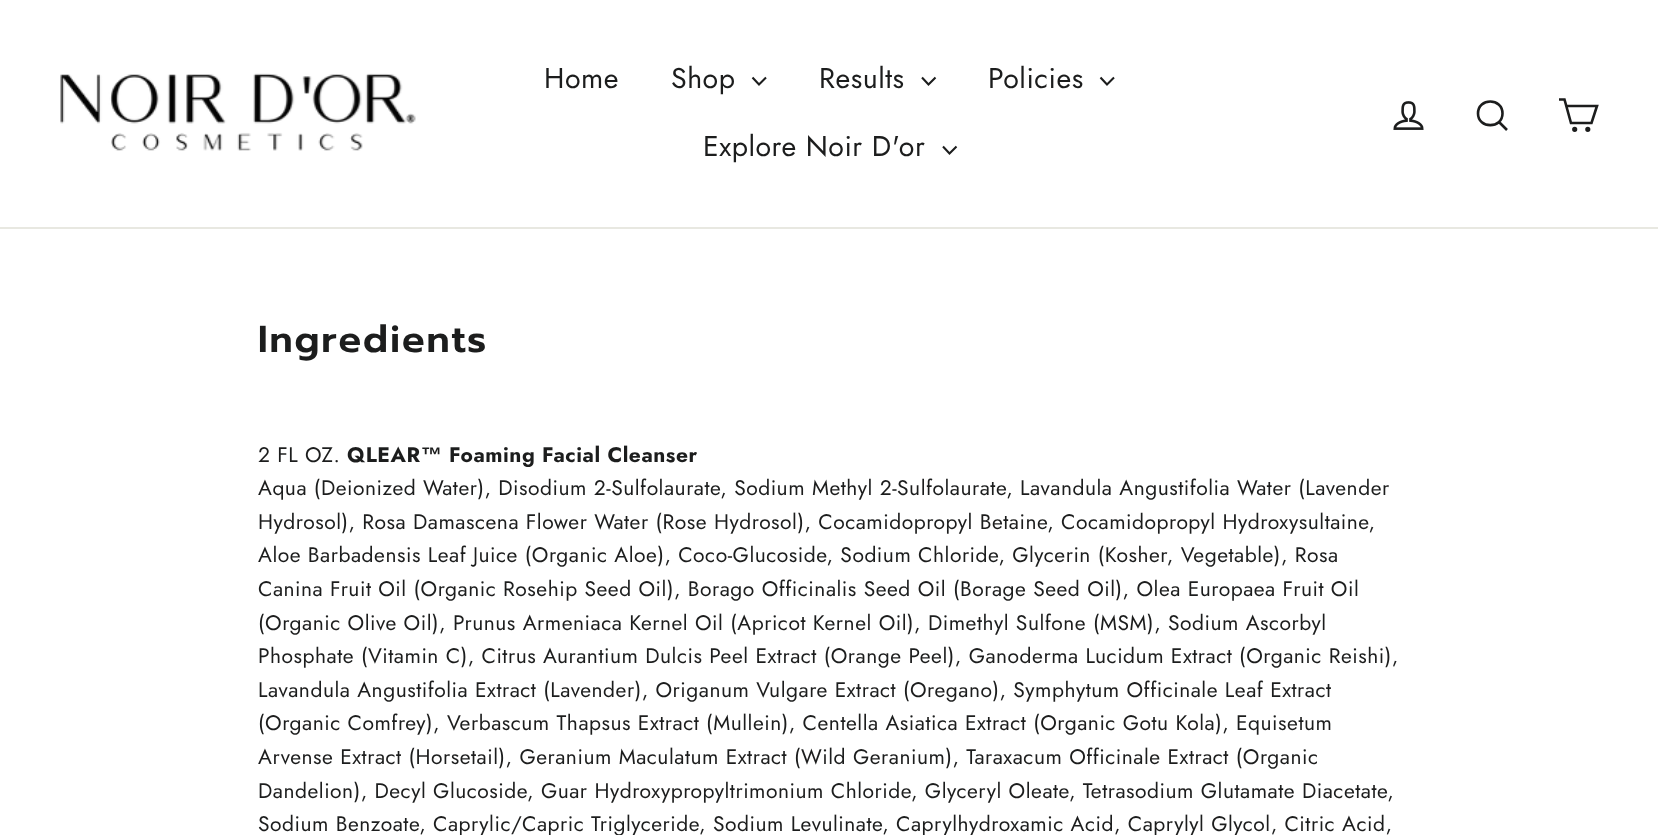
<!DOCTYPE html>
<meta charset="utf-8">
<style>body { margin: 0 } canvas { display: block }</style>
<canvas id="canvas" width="1658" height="835"></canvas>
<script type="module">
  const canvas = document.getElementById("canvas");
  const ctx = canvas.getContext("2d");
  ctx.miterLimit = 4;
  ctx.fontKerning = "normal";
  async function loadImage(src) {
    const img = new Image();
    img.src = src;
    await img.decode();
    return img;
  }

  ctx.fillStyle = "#ffffff";
  ctx.fillRect(0, 0, 1658, 835);
  ctx.fillStyle = "#e8e8e1";
  ctx.fillRect(0, 227, 1658, 2);
  ctx.drawImage(await loadImage("img1.png"), 60, 73, 356, 78);
  ctx.letterSpacing = "0.52px";
  ctx.font = "28.5px Jost";
  ctx.fillStyle = "#1c1d1d";
  ctx.fillText("Home", 544, 88);
  ctx.fillText("Shop", 671, 88);
  ctx.beginPath();
  ctx.moveTo(752.5, 77.5);
  ctx.lineTo(759, 84.5);
  ctx.lineTo(766, 77.5);
  ctx.strokeStyle = "#1c1d1d";
  ctx.lineWidth = 2.1;
  ctx.stroke();
  ctx.fillText("Results", 819, 88);
  ctx.beginPath();
  ctx.moveTo(922, 77.5);
  ctx.lineTo(928.5, 84.5);
  ctx.lineTo(935.5, 77.5);
  ctx.stroke();
  ctx.fillText("Policies", 988, 88);
  ctx.beginPath();
  ctx.moveTo(1100.5, 77.5);
  ctx.lineTo(1107, 84.5);
  ctx.lineTo(1114, 77.5);
  ctx.stroke();
  ctx.fillText("Explore Noir D'or", 703, 156);
  ctx.beginPath();
  ctx.moveTo(943, 146.5);
  ctx.lineTo(949.5, 153.5);
  ctx.lineTo(956.5, 146.5);
  ctx.stroke();
  ctx.drawImage(await loadImage("img2.png"), 1393, 101, 31, 29);
  ctx.beginPath();
  ctx.moveTo(1502.5, 113.5);
  ctx.bezierCurveTo(1502.5, 129, 1478, 129, 1478, 113.5);
  ctx.bezierCurveTo(1478, 97.5, 1502.5, 97.5, 1502.5, 113.5);
  ctx.closePath();
  ctx.moveTo(1507, 130);
  ctx.lineTo(1499, 122);
  ctx.lineWidth = 2.6;
  ctx.stroke();
  ctx.beginPath();
  ctx.moveTo(1566, 106);
  ctx.lineTo(1597, 106);
  ctx.lineTo(1591.5, 123);
  ctx.lineTo(1571, 123);
  ctx.lineTo(1564.5, 99.5);
  ctx.lineTo(1559, 99.5);
  ctx.stroke();
  ctx.beginPath();
  ctx.arc(1574.7, 129.3, 1.3, 0, Math.PI * 2);
  ctx.stroke();
  ctx.beginPath();
  ctx.arc(1587.8, 129.3, 1.3, 0, Math.PI * 2);
  ctx.stroke();
  ctx.letterSpacing = "1.9px";
  ctx.font = "600 37.5px Prompt";
  ctx.fillText("Ingredients", 258, 352);
  ctx.letterSpacing = "0.52px";
  ctx.font = "21px Jost";
  ctx.fillText("2 FL OZ.", 258, 462);
  ctx.font = "bold 21px Jost";
  ctx.fillText("QLEAR", 347, 462);
  ctx.font = "bold 21px Liberation Sans";
  ctx.fillText("™", 421, 462);
  ctx.font = "bold 21px Jost";
  ctx.fillText("Foaming Facial Cleanser", 449, 462);
  ctx.font = "21px Jost";
  ctx.fillText("Aqua (Deionized Water), Disodium 2-Sulfolaurate, Sodium Methyl 2-Sulfolaurate, Lavandula Angustifolia Water (Lavender", 258, 495);
  ctx.fillText("Hydrosol), Rosa Damascena Flower Water (Rose Hydrosol), Cocamidopropyl Betaine, Cocamidopropyl Hydroxysultaine,", 258, 529);
  ctx.fillText("Aloe Barbadensis Leaf Juice (Organic Aloe), Coco-Glucoside, Sodium Chloride, Glycerin (Kosher, Vegetable), Rosa", 258, 562);
  ctx.fillText("Canina Fruit Oil (Organic Rosehip Seed Oil), Borago Officinalis Seed Oil (Borage Seed Oil), Olea Europaea Fruit Oil", 258, 596);
  ctx.fillText("(Organic Olive Oil), Prunus Armeniaca Kernel Oil (Apricot Kernel Oil), Dimethyl Sulfone (MSM), Sodium Ascorbyl", 258, 630);
  ctx.fillText("Phosphate (Vitamin C), Citrus Aurantium Dulcis Peel Extract (Orange Peel), Ganoderma Lucidum Extract (Organic Reishi),", 258, 663);
  ctx.fillText("Lavandula Angustifolia Extract (Lavender), Origanum Vulgare Extract (Oregano), Symphytum Officinale Leaf Extract", 258, 697);
  ctx.fillText("(Organic Comfrey), Verbascum Thapsus Extract (Mullein), Centella Asiatica Extract (Organic Gotu Kola), Equisetum", 258, 730);
  ctx.fillText("Arvense Extract (Horsetail), Geranium Maculatum Extract (Wild Geranium), Taraxacum Officinale Extract (Organic", 258, 764);
  ctx.fillText("Dandelion), Decyl Glucoside, Guar Hydroxypropyltrimonium Chloride, Glyceryl Oleate, Tetrasodium Glutamate Diacetate,", 258, 798);
  ctx.fillText("Sodium Benzoate, Caprylic/Capric Triglyceride, Sodium Levulinate, Caprylhydroxamic Acid, Caprylyl Glycol, Citric Acid,", 258, 831);
</script>
